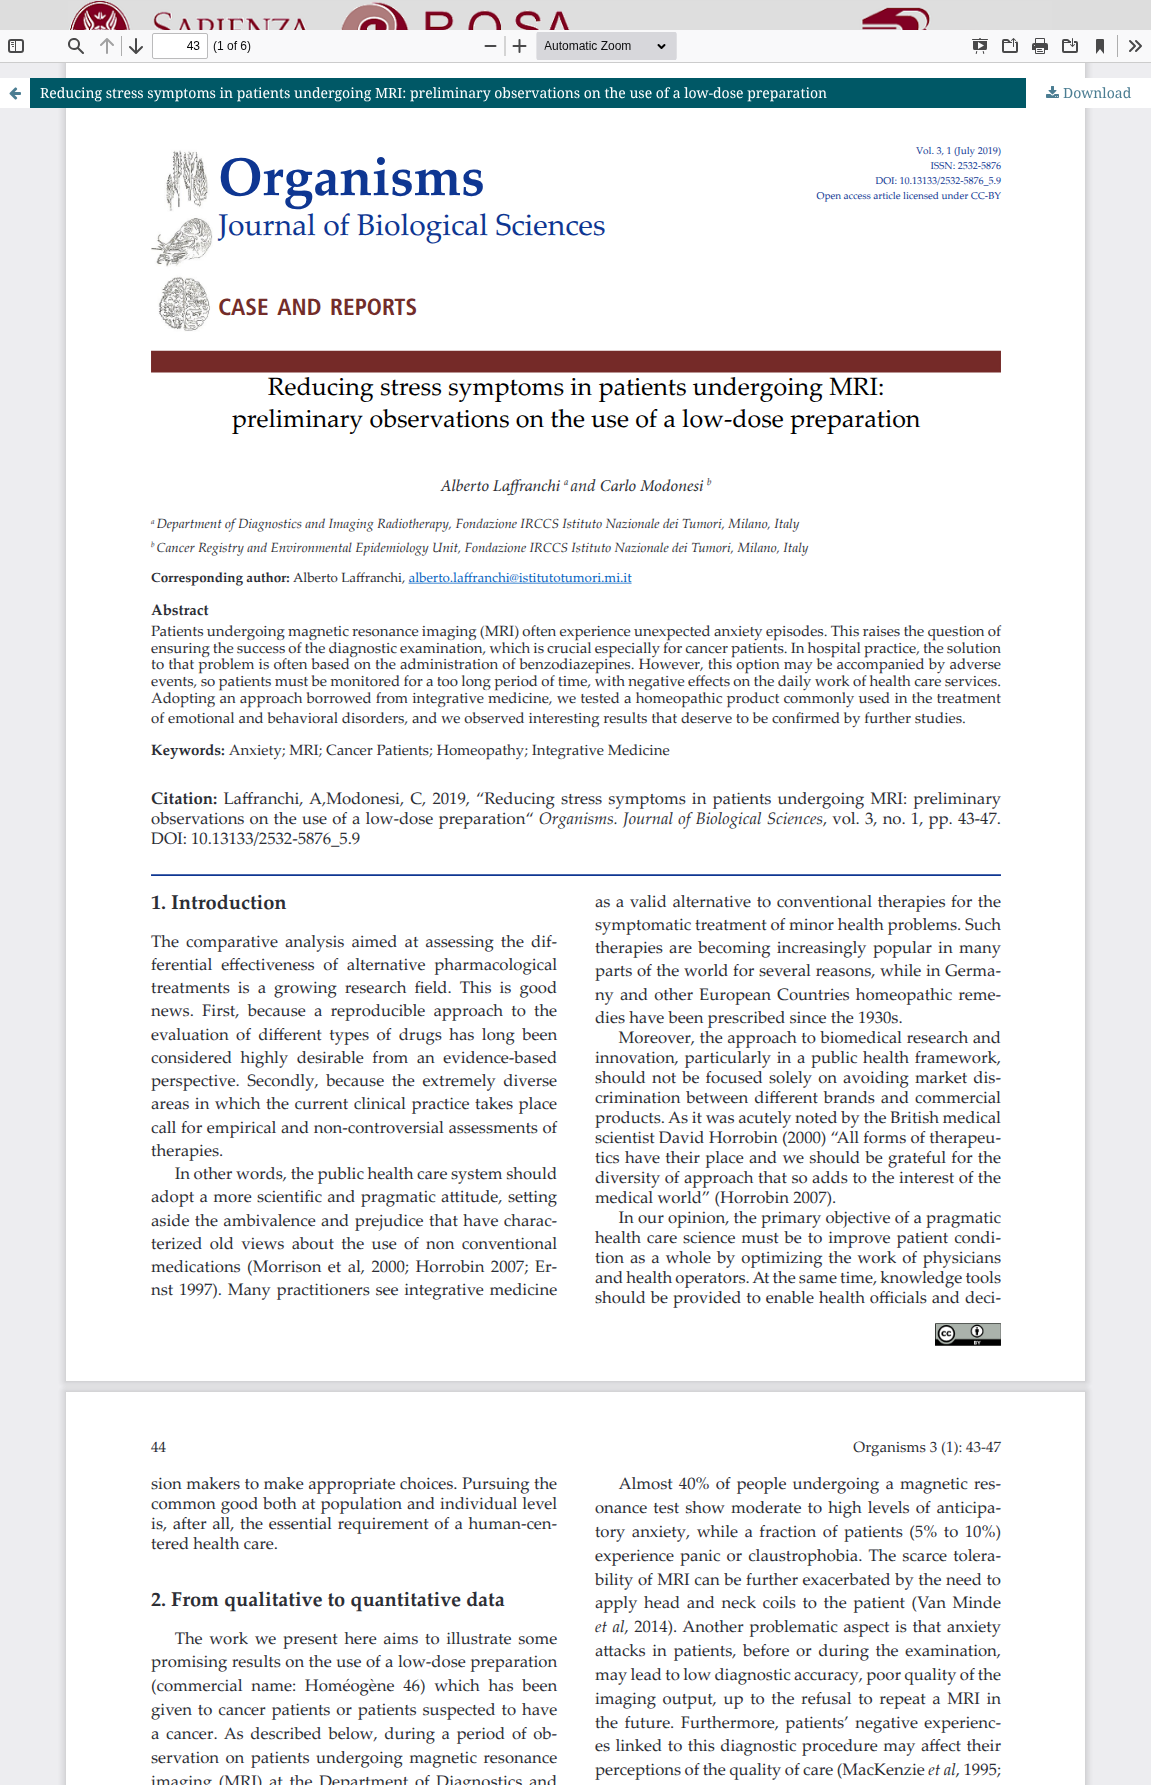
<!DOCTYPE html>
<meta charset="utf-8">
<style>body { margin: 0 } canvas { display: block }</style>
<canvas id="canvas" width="1151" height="1785"></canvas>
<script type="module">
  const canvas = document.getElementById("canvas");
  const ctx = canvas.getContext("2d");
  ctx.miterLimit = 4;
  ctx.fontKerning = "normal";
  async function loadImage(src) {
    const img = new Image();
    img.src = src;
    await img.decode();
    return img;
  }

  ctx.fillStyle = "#dddddd";
  ctx.fillRect(0, 0, 1151, 1785);
  ctx.drawImage(await loadImage("img1.png"), 68, 1, 984, 29);
  ctx.drawImage(await loadImage("img2.png"), 0, 30, 1151, 1755);
  ctx.fillStyle = "#005866";
  ctx.fillRect(30, 78, 996, 30);
  ctx.fillStyle = "#ffffff";
  ctx.fillRect(0, 78, 30, 30);
  ctx.drawImage(await loadImage("img3.png"), 9, 87, 12, 13);
  ctx.font = "14px Noto Serif";
  ctx.fillText("Reducing stress symptoms in patients undergoing MRI: preliminary observations on the use of a low-dose preparation", 40, 98);
  ctx.fillRect(1085, 78, 66, 30);
  ctx.drawImage(await loadImage("img4.png"), 1046, 86, 13, 12);
  ctx.fillStyle = "#4b7d92";
  ctx.fillText("Download", 1063, 98);
</script>
